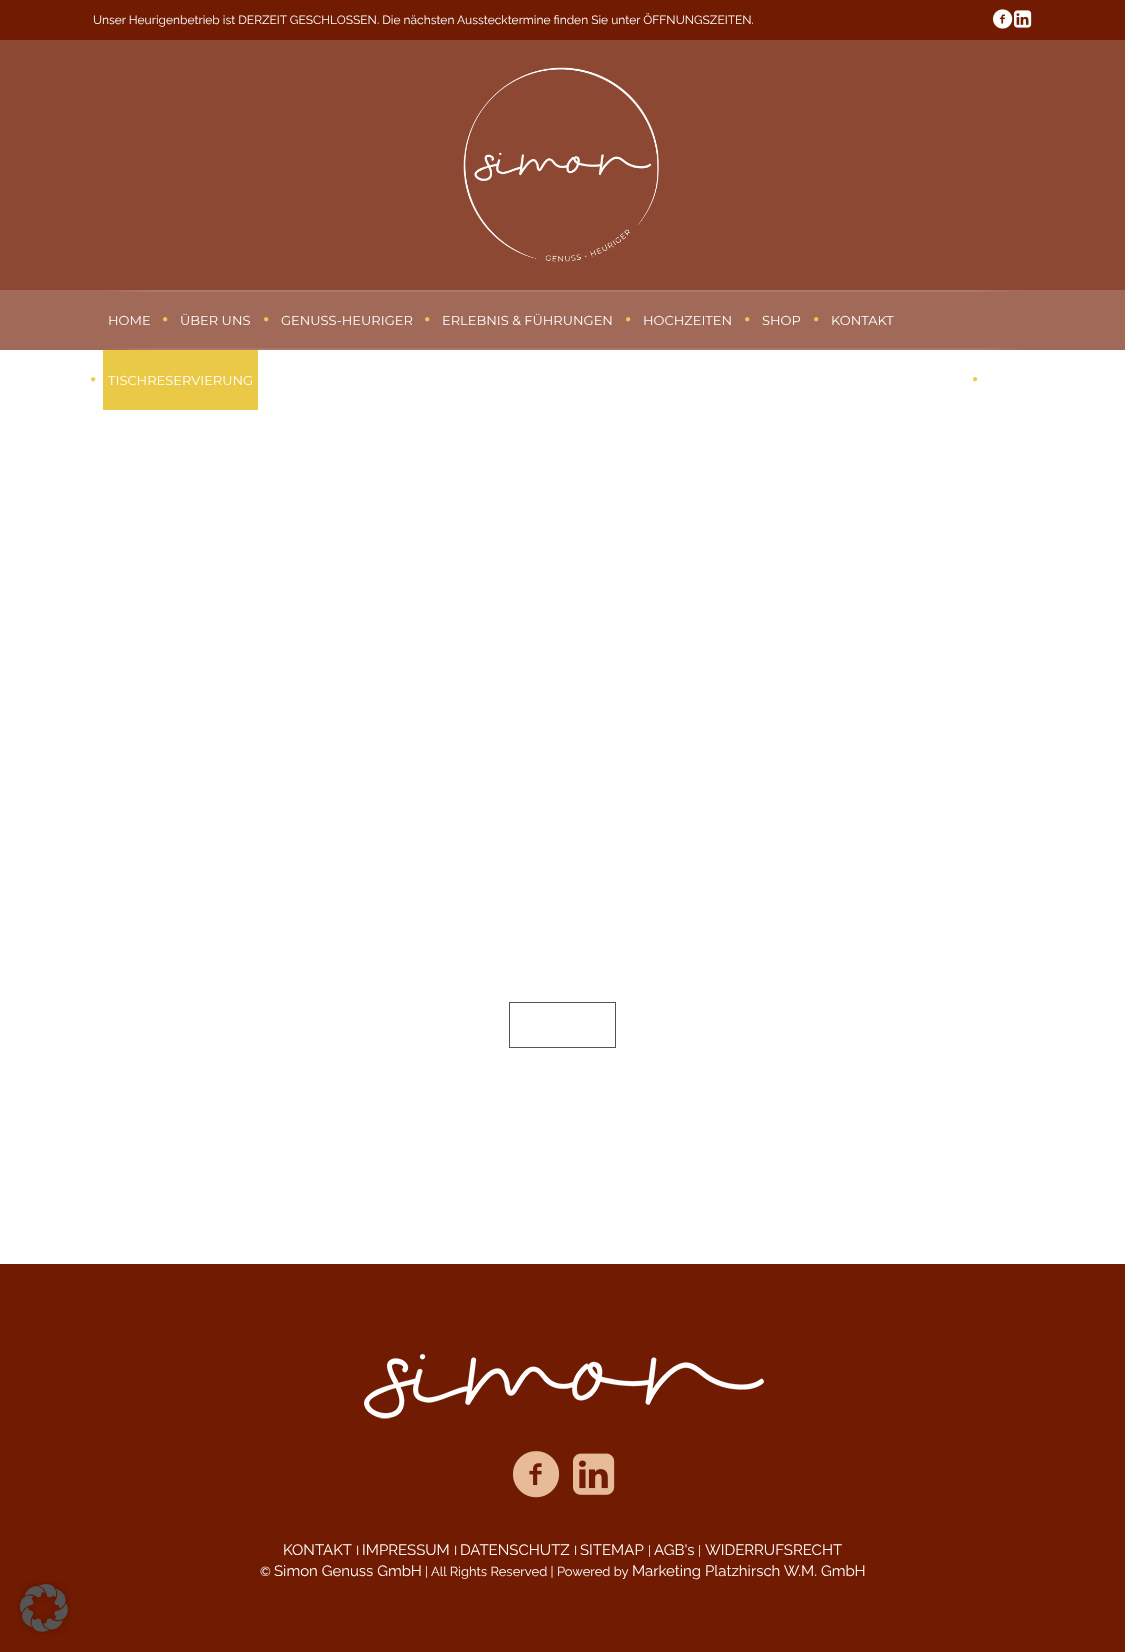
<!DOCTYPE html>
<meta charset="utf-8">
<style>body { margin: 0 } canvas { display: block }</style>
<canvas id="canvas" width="1125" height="1652"></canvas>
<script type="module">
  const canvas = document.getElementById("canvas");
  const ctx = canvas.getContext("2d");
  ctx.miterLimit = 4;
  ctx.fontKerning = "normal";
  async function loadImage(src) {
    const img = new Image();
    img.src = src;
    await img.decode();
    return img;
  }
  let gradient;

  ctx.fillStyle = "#ffffff";
  ctx.fillRect(0, 0, 1125, 1652);
  ctx.fillStyle = "#701b02";
  ctx.fillRect(0, 0, 1125, 40);
  ctx.font = "12px Raleway";
  ctx.fillStyle = "#ffffff";
  ctx.fillText("Unser Heurigenbetrieb ist DERZEIT GESCHLOSSEN. Die nächsten Ausstecktermine finden Sie unter ÖFFNUNGSZEITEN.", 93, 24);
  ctx.drawImage(await loadImage("img1.png"), 993, 9, 20, 20);
  ctx.drawImage(await loadImage("img2.png"), 1014, 10, 18, 18);
  ctx.fillStyle = "#8d4833";
  ctx.fillRect(0, 40, 1125, 250);
  ctx.drawImage(await loadImage("img3.png"), 463, 67, 196, 195);
  ctx.fillStyle = "#a16958";
  ctx.fillRect(0, 290, 1125, 60);
  gradient = ctx.createLinearGradient(102, 349, 1024, 349);
  gradient.addColorStop(0, "#a16958");
  gradient.addColorStop(0.05, "#aa7869");
  gradient.addColorStop(0.95, "#aa7869");
  gradient.addColorStop(1, "#a16958");
  ctx.fillStyle = gradient;
  ctx.fillRect(102, 348, 922, 2);
  gradient = ctx.createLinearGradient(102, 291, 1024, 291);
  gradient.addColorStop(0, "#a16958");
  gradient.addColorStop(0.05, "#aa7869");
  gradient.addColorStop(0.95, "#aa7869");
  gradient.addColorStop(1, "#a16958");
  ctx.fillStyle = gradient;
  ctx.fillRect(102, 290, 922, 2);
  ctx.font = "13px Montserrat";
  ctx.fillStyle = "#ffffff";
  ctx.fillText("HOME", 108, 325);
  ctx.drawImage(await loadImage("img4.png"), 163, 317, 5, 5);
  ctx.fillText("ÜBER UNS", 180, 325);
  ctx.drawImage(await loadImage("img4.png"), 264, 317, 5, 5);
  ctx.fillText("GENUSS-HEURIGER", 281, 325);
  ctx.drawImage(await loadImage("img4.png"), 425, 317, 5, 5);
  ctx.fillText("ERLEBNIS & FÜHRUNGEN", 442, 325);
  ctx.drawImage(await loadImage("img4.png"), 626, 317, 5, 5);
  ctx.fillText("HOCHZEITEN", 643, 325);
  ctx.drawImage(await loadImage("img4.png"), 745, 317, 5, 5);
  ctx.fillText("SHOP", 762, 325);
  ctx.drawImage(await loadImage("img4.png"), 814, 317, 5, 5);
  ctx.fillText("KONTAKT", 831, 325);
  ctx.drawImage(await loadImage("img5.png"), 91, 377, 5, 5);
  ctx.fillStyle = "#eac947";
  ctx.fillRect(103, 350, 155, 60);
  ctx.fillStyle = "#ffffff";
  ctx.fillText("TISCHRESERVIERUNG", 108, 385);
  ctx.drawImage(await loadImage("img5.png"), 973, 377, 5, 5);
  ctx.strokeStyle = "#545454";
  ctx.strokeRect(509.5, 1002.5, 106, 45);
  ctx.fillStyle = "#701b02";
  ctx.fillRect(0, 1264, 1125, 388);
  ctx.drawImage(await loadImage("img6.png"), 364, 1354, 400, 65);
  ctx.drawImage(await loadImage("img7.png"), 513, 1451, 47, 47);
  ctx.drawImage(await loadImage("img8.png"), 573, 1453, 42, 42);
  ctx.font = "15px Raleway";
  ctx.fillStyle = "#ffffff";
  ctx.fillText("KONTAKT", 283, 1555);
  ctx.font = "13px Raleway";
  ctx.fillText("I", 356, 1555);
  ctx.font = "15px Raleway";
  ctx.fillText("IMPRESSUM", 362, 1555);
  ctx.font = "13px Raleway";
  ctx.fillText("I", 454, 1555);
  ctx.font = "15px Raleway";
  ctx.fillText("DATENSCHUTZ", 460, 1555);
  ctx.font = "13px Raleway";
  ctx.fillText("I", 574, 1555);
  ctx.font = "15px Raleway";
  ctx.fillText("SITEMAP", 580, 1555);
  ctx.font = "13px Raleway";
  ctx.fillText("|", 648, 1555);
  ctx.font = "15px Raleway";
  ctx.fillText("AGB's", 654, 1555);
  ctx.font = "13px Raleway";
  ctx.fillText("|", 698, 1555);
  ctx.font = "15px Raleway";
  ctx.fillText("WIDERRUFSRECHT", 705, 1555);
  ctx.font = "13px Raleway";
  ctx.fillText("©", 260, 1576);
  ctx.font = "15px Raleway";
  ctx.fillText("Simon Genuss GmbH", 274, 1576);
  ctx.font = "13px Raleway";
  ctx.fillText("| All Rights Reserved | Powered by", 425, 1576);
  ctx.font = "15px Raleway";
  ctx.fillText("Marketing Platzhirsch W.M. GmbH", 632, 1576);
  ctx.drawImage(await loadImage("img9.png"), 17, 1581, 54, 54);
</script>
